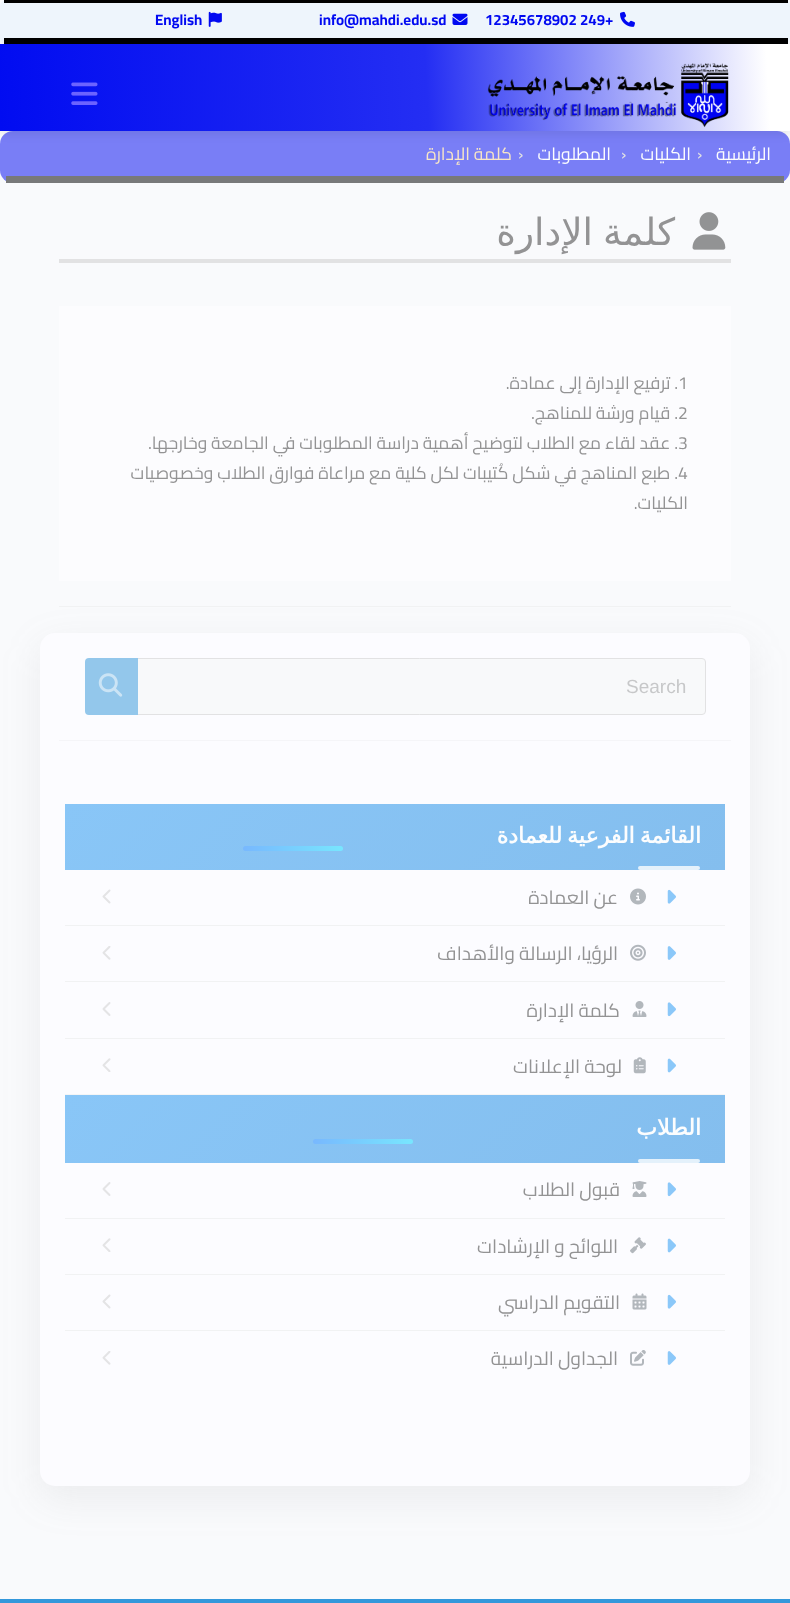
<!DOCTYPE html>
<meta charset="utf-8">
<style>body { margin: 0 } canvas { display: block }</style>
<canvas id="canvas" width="790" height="1603"></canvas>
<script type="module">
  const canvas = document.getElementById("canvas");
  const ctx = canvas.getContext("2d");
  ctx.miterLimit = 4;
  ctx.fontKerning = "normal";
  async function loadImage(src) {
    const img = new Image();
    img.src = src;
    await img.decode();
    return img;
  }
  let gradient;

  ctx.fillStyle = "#f9fafc";
  ctx.fillRect(0, 0, 790, 1603);
  ctx.fillStyle = "#eef5fc";
  ctx.beginPath();
  ctx.roundRect(0, 0, 790, 44, 6);
  ctx.fill();
  ctx.fillStyle = "#000000";
  ctx.fillRect(4, 0, 784, 3);
  ctx.fillRect(4, 38, 784, 6);
  ctx.drawImage(await loadImage("img1.png"), 620, 11, 15, 16);
  ctx.font = "bold 15px Cairo";
  ctx.fillStyle = "#0109f1";
  ctx.fillText("12345678902 249+", 485, 25);
  ctx.drawImage(await loadImage("img2.png"), 452, 13, 16, 12);
  ctx.fillText("info@mahdi.edu.sd", 319, 25);
  ctx.drawImage(await loadImage("img3.png"), 208, 11, 14, 16);
  ctx.fillText("English", 155, 25);
  ctx.fillStyle = "#797ef6";
  ctx.beginPath();
  ctx.roundRect(0, 131, 790, 52, 13);
  ctx.fill();
  ctx.fillStyle = "rgba(0, 0, 0, 0.08)";
  ctx.filter = "blur(5px)";
  ctx.beginPath();
  ctx.rect(0, 46, 790, 88);
  ctx.fill();
  ctx.filter = "none";
  gradient = ctx.createLinearGradient(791, 67, -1.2, 108);
  gradient.addColorStop(0.03, "#ffffff");
  gradient.addColorStop(0.46, "#242ef3");
  gradient.addColorStop(1, "#010cf1");
  ctx.fillStyle = gradient;
  ctx.fillRect(0, 44, 790, 87);
  ctx.drawImage(await loadImage("img4.png"), 487, 63, 242, 65);
  ctx.drawImage(await loadImage("img5.png"), 71, 82, 27, 23);
  ctx.fillStyle = "#78797a";
  ctx.fillRect(6, 176, 778, 7);
  ctx.direction = "rtl";
  ctx.font = "17.5px Cairo";
  ctx.fillStyle = "#fcfdfe";
  ctx.fillText("الرئيسية", 771, 160);
  ctx.direction = "ltr";
  ctx.fillStyle = "#e2e2e3";
  ctx.fillText("›", 697, 160);
  ctx.direction = "rtl";
  ctx.fillStyle = "#fcfdfe";
  ctx.fillText("الكليات", 691, 160);
  ctx.direction = "ltr";
  ctx.fillStyle = "#e2e2e3";
  ctx.fillText("›", 621, 160);
  ctx.direction = "rtl";
  ctx.fillStyle = "#fcfdfe";
  ctx.fillText("المطلوبات", 611, 160);
  ctx.direction = "ltr";
  ctx.fillStyle = "#e2e2e3";
  ctx.fillText("›", 518, 160);
  ctx.direction = "rtl";
  ctx.fillStyle = "#f8e6c6";
  ctx.fillText("كلمة الإدارة", 512, 160);
  ctx.fillStyle = "#f1f2f3";
  ctx.fillRect(59, 606, 672, 1);
  ctx.fillStyle = "#e2e2e3";
  ctx.fillRect(59, 259, 672, 4);
  ctx.drawImage(await loadImage("img6.png"), 692, 212, 34, 38);
  ctx.wordSpacing = "-2px";
  ctx.font = "37.5px DejaVu Sans";
  ctx.fillStyle = "#939394";
  ctx.fillText("كلمة الإدارة", 675, 245);
  ctx.fillStyle = "#fcfcfe";
  ctx.fillRect(59, 306, 672, 275);
  ctx.wordSpacing = "0px";
  ctx.direction = "ltr";
  ctx.font = "17.5px Cairo";
  ctx.fillStyle = "#939394";
  ctx.fillText("1", 678, 389);
  ctx.direction = "rtl";
  ctx.fillText(". ترفيع الإدارة إلى عمادة.", 678, 389);
  ctx.direction = "ltr";
  ctx.fillText("2", 678, 419);
  ctx.direction = "rtl";
  ctx.fillText(". قيام ورشة للمناهج.", 678, 419);
  ctx.direction = "ltr";
  ctx.fillText("3", 678, 449);
  ctx.direction = "rtl";
  ctx.fillText(". عقد لقاء مع الطلاب لتوضيح أهمية دراسة المطلوبات في الجامعة وخارجها.", 678, 449);
  ctx.direction = "ltr";
  ctx.fillText("4", 678, 479);
  ctx.direction = "rtl";
  ctx.fillText(". طبع المناهج في شكل كُتيبات لكل كلية مع مراعاة فوارق الطلاب وخصوصيات", 678, 479);
  ctx.fillText("الكليات.", 688, 509);
  ctx.fillStyle = "rgba(120, 121, 122, 0.1)";
  ctx.filter = "blur(19px)";
  ctx.beginPath();
  ctx.roundRect(40, 645, 710, 854, 15);
  ctx.fill();
  ctx.filter = "none";
  ctx.fillStyle = "#fcfcff";
  ctx.beginPath();
  ctx.roundRect(40, 633, 710, 853, 15);
  ctx.fill();
  ctx.fillStyle = "#f5f5f8";
  ctx.fillRect(59, 740, 672, 1);
  ctx.fillStyle = "#f8f9fa";
  ctx.beginPath();
  ctx.roundRect(136.5, 658.5, 569, 56, [0, 3.5, 3.5, 0]);
  ctx.fill();
  ctx.strokeStyle = "#e2e2e3";
  ctx.stroke();
  ctx.direction = "ltr";
  ctx.font = "19px Liberation Sans";
  ctx.fillStyle = "#c7c8c9";
  ctx.fillText("Search", 626, 693);
  ctx.fillStyle = "#93c7eb";
  ctx.beginPath();
  ctx.roundRect(85, 658, 53, 57, [4, 0, 0, 4]);
  ctx.fill();
  ctx.drawImage(await loadImage("img7.png"), 98, 673, 25, 24);
  ctx.fillStyle = "#f4f5f6";
  ctx.fillRect(65, 1094, 660, 1);
  gradient = ctx.createLinearGradient(213, 655, 577, 1018);
  gradient.addColorStop(0, "#89c6f7");
  gradient.addColorStop(1, "#84beee");
  ctx.fillStyle = gradient;
  ctx.fillRect(65, 804, 660, 66);
  ctx.wordSpacing = "-2px";
  ctx.direction = "rtl";
  ctx.font = "bold 22px DejaVu Sans";
  ctx.fillStyle = "#fcfdfe";
  ctx.fillText("القائمة الفرعية للعمادة", 701, 843);
  gradient = ctx.createLinearGradient(243, 849, 343, 849);
  gradient.addColorStop(0, "#78b8fe");
  gradient.addColorStop(1, "#78e6fe");
  ctx.fillStyle = gradient;
  ctx.beginPath();
  ctx.roundRect(243, 846, 100, 5, 2.5);
  ctx.fill();
  ctx.fillStyle = "#e4f1fb";
  ctx.beginPath();
  ctx.roundRect(638, 866, 62, 4, 2);
  ctx.fill();
  ctx.fillStyle = "#f1f2f3";
  ctx.fillRect(65, 925, 660, 1);
  ctx.drawImage(await loadImage("img8.png"), 667, 889, 9, 15);
  ctx.drawImage(await loadImage("img9.png"), 630, 888, 16, 17);
  ctx.wordSpacing = "0px";
  ctx.font = "19px Cairo";
  ctx.fillStyle = "#939394";
  ctx.fillText("عن العمادة", 618, 904);
  ctx.drawImage(await loadImage("img10.png"), 102, 889, 9, 15);
  ctx.fillStyle = "#f1f2f3";
  ctx.fillRect(65, 981, 660, 1);
  ctx.drawImage(await loadImage("img11.png"), 667, 946, 9, 14);
  ctx.drawImage(await loadImage("img12.png"), 630, 944, 16, 17);
  ctx.fillStyle = "#939394";
  ctx.fillText("الرؤيا، الرسالة والأهداف", 618, 960);
  ctx.drawImage(await loadImage("img13.png"), 102, 946, 9, 14);
  ctx.fillStyle = "#f1f2f3";
  ctx.fillRect(65, 1038, 660, 1);
  ctx.drawImage(await loadImage("img14.png"), 667, 1002, 9, 15);
  ctx.drawImage(await loadImage("img15.png"), 632, 1001, 15, 16);
  ctx.fillStyle = "#939394";
  ctx.fillText("كلمة الإدارة", 620, 1017);
  ctx.drawImage(await loadImage("img16.png"), 102, 1002, 9, 14);
  ctx.drawImage(await loadImage("img17.png"), 667, 1058, 9, 15);
  ctx.drawImage(await loadImage("img18.png"), 633, 1057, 13, 17);
  ctx.fillText("لوحة الإعلانات", 622, 1073);
  ctx.drawImage(await loadImage("img19.png"), 102, 1058, 9, 14);
  gradient = ctx.createLinearGradient(213, 947, 577, 1311);
  gradient.addColorStop(0, "#89c6f7");
  gradient.addColorStop(1, "#84beee");
  ctx.fillStyle = gradient;
  ctx.fillRect(65, 1095, 660, 68);
  ctx.font = "bold 22px DejaVu Sans";
  ctx.fillStyle = "#fcfdfe";
  ctx.fillText("الطلاب", 701, 1135);
  gradient = ctx.createLinearGradient(313, 1141, 413, 1141);
  gradient.addColorStop(0, "#78b8fe");
  gradient.addColorStop(1, "#78e6fe");
  ctx.fillStyle = gradient;
  ctx.beginPath();
  ctx.roundRect(313, 1139, 100, 5, 2.5);
  ctx.fill();
  ctx.fillStyle = "#e4f1fb";
  ctx.beginPath();
  ctx.roundRect(638, 1159, 62, 4, 2);
  ctx.fill();
  ctx.fillStyle = "#f1f2f3";
  ctx.fillRect(65, 1218, 660, 1);
  ctx.drawImage(await loadImage("img14.png"), 667, 1182, 9, 15);
  ctx.drawImage(await loadImage("img20.png"), 632, 1181, 15, 16);
  ctx.font = "19px Cairo";
  ctx.fillStyle = "#939394";
  ctx.fillText("قبول الطلاب", 620, 1196);
  ctx.drawImage(await loadImage("img16.png"), 102, 1182, 9, 14);
  ctx.fillStyle = "#f1f2f3";
  ctx.fillRect(65, 1274, 660, 1);
  ctx.drawImage(await loadImage("img17.png"), 667, 1238, 9, 15);
  ctx.drawImage(await loadImage("img21.png"), 630, 1237, 16, 17);
  ctx.fillStyle = "#939394";
  ctx.fillText("اللوائح و الإرشادات", 618, 1253);
  ctx.drawImage(await loadImage("img19.png"), 102, 1238, 9, 14);
  ctx.fillStyle = "#f1f2f3";
  ctx.fillRect(65, 1330, 660, 1);
  ctx.drawImage(await loadImage("img8.png"), 667, 1294, 9, 15);
  ctx.drawImage(await loadImage("img22.png"), 632, 1293, 15, 17);
  ctx.fillStyle = "#939394";
  ctx.fillText("التقويم الدراسي", 620, 1309);
  ctx.drawImage(await loadImage("img10.png"), 102, 1294, 9, 15);
  ctx.drawImage(await loadImage("img11.png"), 667, 1351, 9, 14);
  ctx.drawImage(await loadImage("img23.png"), 630, 1350, 16, 16);
  ctx.fillText("الجداول الدراسية", 618, 1365);
  ctx.drawImage(await loadImage("img13.png"), 102, 1351, 9, 14);
  ctx.fillStyle = "#3498db";
  ctx.fillRect(0, 1599, 790, 4);
</script>
